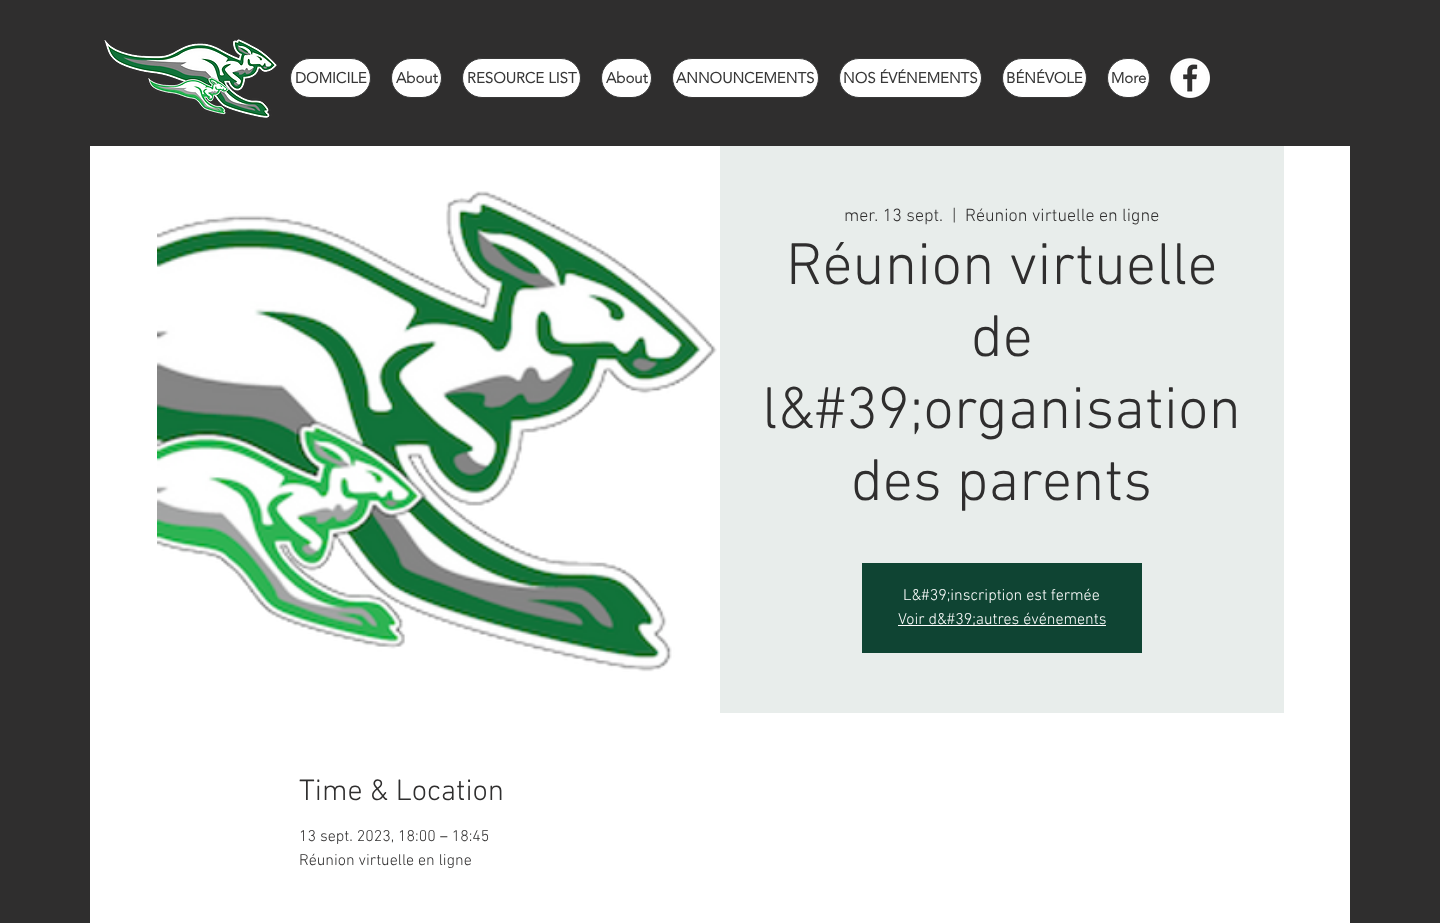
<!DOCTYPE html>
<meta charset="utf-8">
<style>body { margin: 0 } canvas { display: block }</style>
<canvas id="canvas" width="1440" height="923"></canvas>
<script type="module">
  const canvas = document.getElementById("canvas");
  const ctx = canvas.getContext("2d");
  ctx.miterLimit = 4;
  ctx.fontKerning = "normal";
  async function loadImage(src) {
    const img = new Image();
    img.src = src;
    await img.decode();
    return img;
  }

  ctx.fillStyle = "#2f2e2e";
  ctx.fillRect(0, 0, 1440, 923);
  ctx.drawImage(await loadImage("img1.png"), 104, 39, 173, 79);
  ctx.fillStyle = "#ffffff";
  ctx.beginPath();
  ctx.roundRect(290.5, 58.5, 80, 39, 19.5);
  ctx.fill();
  ctx.strokeStyle = "#383838";
  ctx.stroke();
  ctx.font = "bold 15px 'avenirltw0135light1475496'";
  ctx.fillStyle = "#383838";
  ctx.fillText("DOMICILE", 295, 83);
  ctx.fillStyle = "#ffffff";
  ctx.beginPath();
  ctx.roundRect(391.5, 58.5, 50, 39, 19.5);
  ctx.fill();
  ctx.stroke();
  ctx.fillStyle = "#383838";
  ctx.fillText("About", 396, 83);
  ctx.fillStyle = "#ffffff";
  ctx.beginPath();
  ctx.roundRect(462.5, 58.5, 118, 39, 19.5);
  ctx.fill();
  ctx.stroke();
  ctx.fillStyle = "#383838";
  ctx.fillText("RESOURCE LIST", 467, 83);
  ctx.fillStyle = "#ffffff";
  ctx.beginPath();
  ctx.roundRect(601.5, 58.5, 50, 39, 19.5);
  ctx.fill();
  ctx.stroke();
  ctx.fillStyle = "#383838";
  ctx.fillText("About", 606, 83);
  ctx.fillStyle = "#ffffff";
  ctx.beginPath();
  ctx.roundRect(672.5, 58.5, 146, 39, 19.5);
  ctx.fill();
  ctx.stroke();
  ctx.fillStyle = "#383838";
  ctx.fillText("ANNOUNCEMENTS", 676, 83);
  ctx.fillStyle = "#ffffff";
  ctx.beginPath();
  ctx.roundRect(839.5, 58.5, 142, 39, 19.5);
  ctx.fill();
  ctx.stroke();
  ctx.fillStyle = "#383838";
  ctx.fillText("NOS ÉVÉNEMENTS", 843, 83);
  ctx.fillStyle = "#ffffff";
  ctx.beginPath();
  ctx.roundRect(1002.5, 58.5, 84, 39, 19.5);
  ctx.fill();
  ctx.stroke();
  ctx.fillStyle = "#383838";
  ctx.fillText("BÉNÉVOLE", 1006, 83);
  ctx.fillStyle = "#ffffff";
  ctx.beginPath();
  ctx.roundRect(1107.5, 58.5, 42, 39, 19.5);
  ctx.fill();
  ctx.stroke();
  ctx.fillStyle = "#383838";
  ctx.fillText("More", 1111, 83);
  ctx.drawImage(await loadImage("img2.png"), 1170, 58, 40, 40);
  ctx.fillStyle = "#ffffff";
  ctx.fillRect(90, 146, 1260, 777);
  ctx.drawImage(await loadImage("img3.png"), 157, 191, 560, 481);
  ctx.fillStyle = "#e8edeb";
  ctx.fillRect(720, 146, 564, 567);
  ctx.font = "300 18px 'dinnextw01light'";
  ctx.fillStyle = "#2f2e2e";
  ctx.fillText("mer. 13 sept.", 844, 221);
  ctx.fillText("|", 952, 221);
  ctx.fillText("Réunion virtuelle en ligne", 965, 221);
  ctx.font = "300 60px 'dinnextw01light'";
  ctx.fillText("Réunion virtuelle", 786, 284);
  ctx.fillText("de", 971, 356);
  ctx.fillText("l&#39;organisation", 762, 428);
  ctx.fillText("des parents", 851, 500);
  ctx.fillStyle = "#0f4433";
  ctx.fillRect(862, 563, 280, 90);
  ctx.font = "300 16px 'dinnextw01light'";
  ctx.fillStyle = "#ffffff";
  ctx.fillText("L&#39;inscription est fermée", 903, 600);
  ctx.fillRect(898, 625, 208, 1);
  ctx.fillText("Voir d&#39;autres événements", 898, 624);
  ctx.font = "300 30px 'dinnextw01light'";
  ctx.fillStyle = "#2f2e2e";
  ctx.fillText("Time & Location", 299, 800);
  ctx.font = "300 16px 'dinnextw01light'";
  ctx.fillText("13 sept. 2023, 18:00 – 18:45", 299, 841);
  ctx.fillText("Réunion virtuelle en ligne", 299, 865);
</script>
